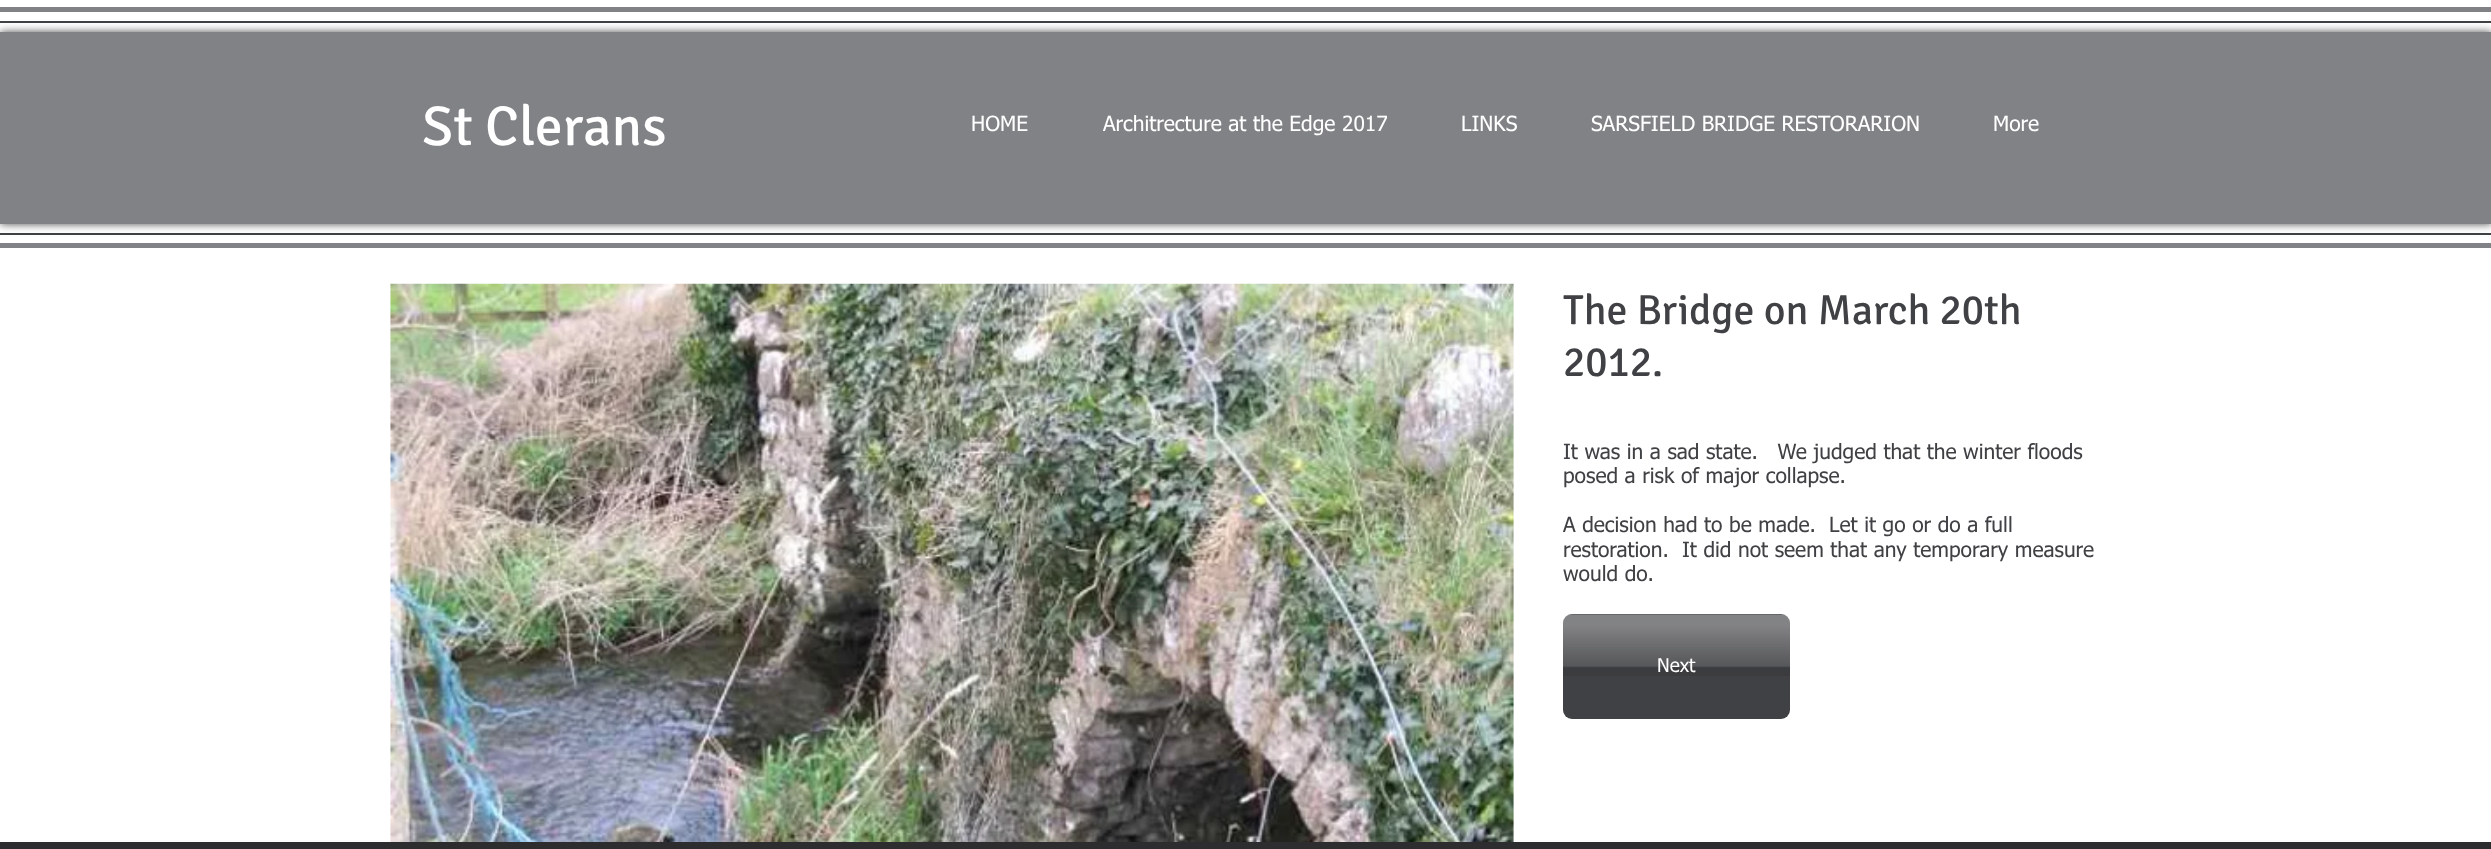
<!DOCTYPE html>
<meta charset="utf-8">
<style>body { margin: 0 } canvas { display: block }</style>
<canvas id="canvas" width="2491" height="849"></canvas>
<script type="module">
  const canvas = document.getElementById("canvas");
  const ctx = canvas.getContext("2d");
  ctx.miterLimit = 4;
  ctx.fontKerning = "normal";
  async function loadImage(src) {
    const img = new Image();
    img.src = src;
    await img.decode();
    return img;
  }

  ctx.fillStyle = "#ffffff";
  ctx.fillRect(0, 0, 2491, 849);
  ctx.fillStyle = "#808286";
  ctx.fillRect(0, 7, 2491, 5);
  ctx.fillRect(0, 243, 2491, 5);
  ctx.fillStyle = "rgba(0, 0, 0, 0.7)";
  ctx.filter = "blur(4.5px)";
  ctx.beginPath();
  ctx.rect(0, 32, 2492, 192);
  ctx.fill();
  ctx.filter = "none";
  ctx.fillStyle = "#404144";
  ctx.fillRect(0, 21, 2491, 2);
  ctx.fillRect(0, 233, 2491, 2);
  ctx.fillStyle = "#808286";
  ctx.fillRect(0, 32, 2491, 192);
  ctx.font = "56px Signika";
  ctx.fillStyle = "#ffffff";
  ctx.fillText("St Clerans", 422, 145);
  ctx.font = "21px tahoma";
  ctx.fillText("HOME", 971, 131);
  ctx.fillText("Architrecture at the Edge 2017", 1103, 131);
  ctx.fillText("LINKS", 1461, 131);
  ctx.fillText("SARSFIELD BRIDGE RESTORARION", 1591, 131);
  ctx.fillText("More", 1993, 131);
  ctx.drawImage(await loadImage("img1.png"), 390, 283, 1124, 559);
  ctx.font = "42px Signika";
  ctx.fillStyle = "#404144";
  ctx.fillText("The Bridge on March 20th", 1563, 324);
  ctx.fillText("2012.", 1563, 376);
  ctx.font = "21px tahoma";
  ctx.fillText("It was in a sad state.   We judged that the winter floods", 1563, 459);
  ctx.fillText("posed a risk of major collapse.", 1563, 483);
  ctx.fillText("A decision had to be made.  Let it go or do a full", 1563, 532);
  ctx.fillText("restoration.  It did not seem that any temporary measure", 1563, 557);
  ctx.fillText("would do.", 1563, 581);
  ctx.beginPath();
  ctx.roundRect(1563, 614, 227, 105, 9);
  ctx.fill();
  ctx.drawImage(await loadImage("img2.png"), 1563, 614, 227, 62);
  ctx.font = "19px tahoma";
  ctx.fillStyle = "#ffffff";
  ctx.fillText("Next", 1657, 672);
  ctx.fillStyle = "#2d2d2f";
  ctx.fillRect(0, 842, 2491, 7);
</script>
